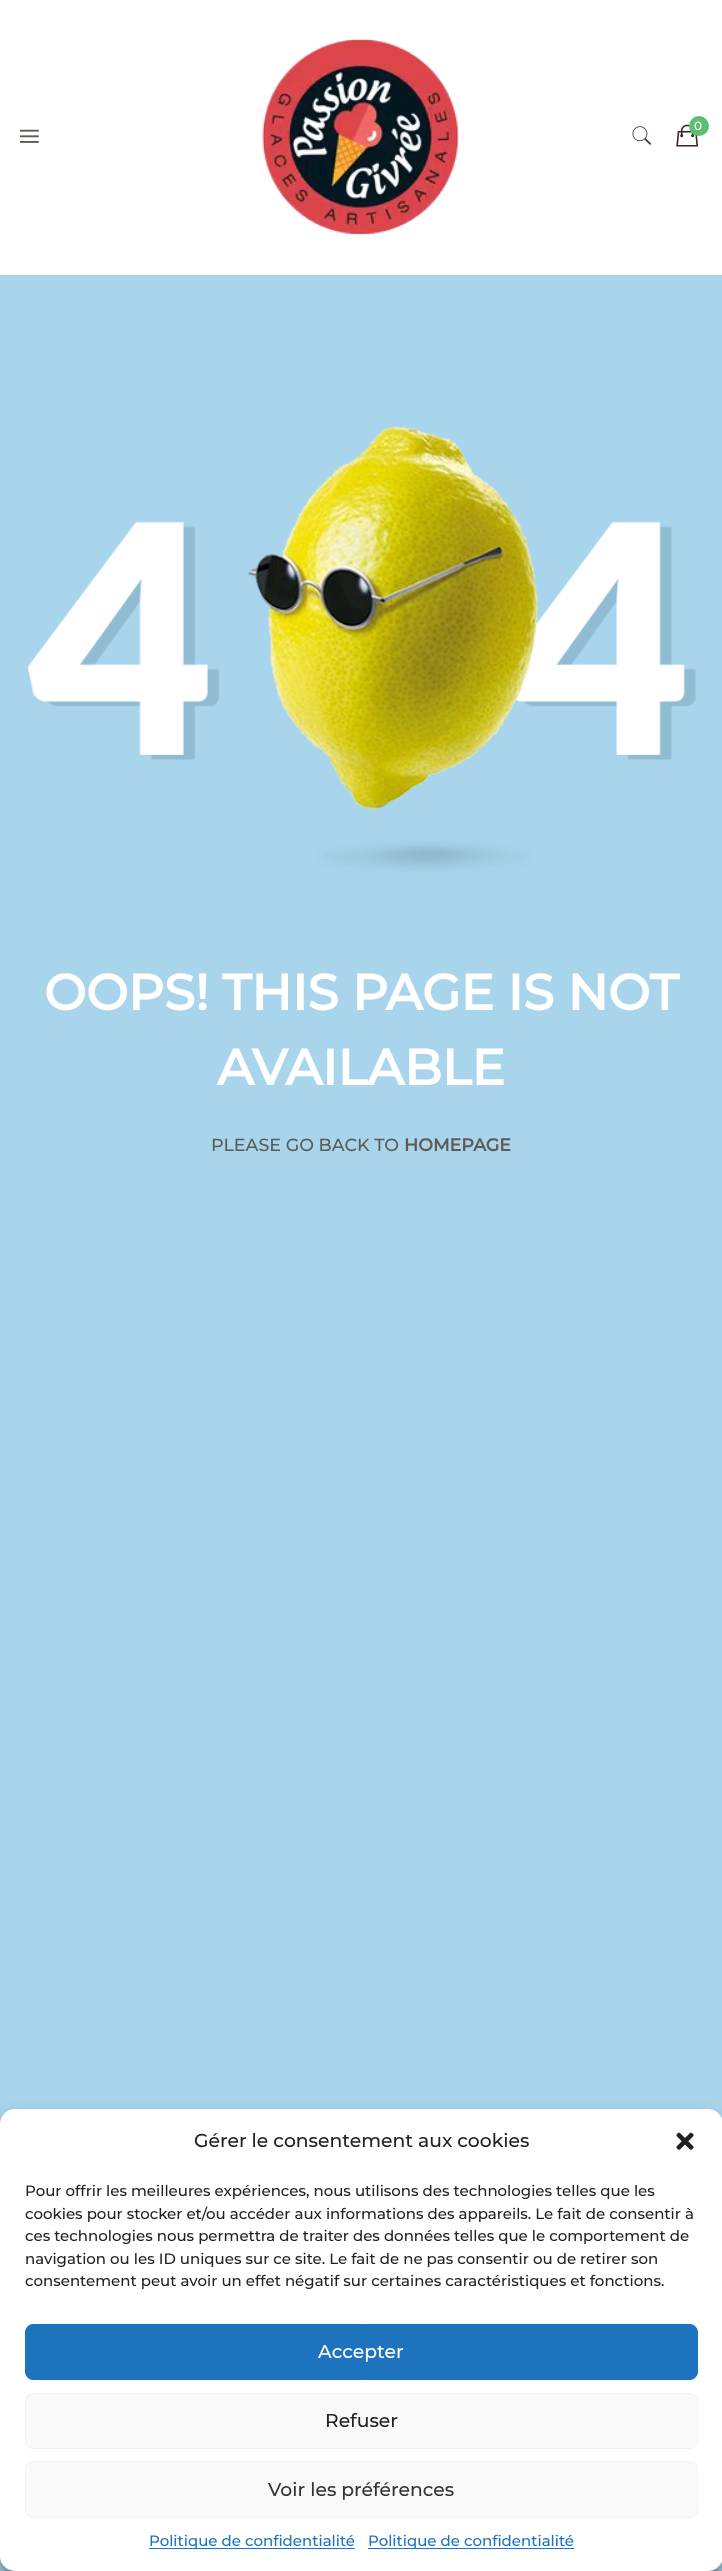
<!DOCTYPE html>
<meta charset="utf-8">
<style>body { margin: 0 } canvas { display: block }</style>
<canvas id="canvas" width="722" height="2571"></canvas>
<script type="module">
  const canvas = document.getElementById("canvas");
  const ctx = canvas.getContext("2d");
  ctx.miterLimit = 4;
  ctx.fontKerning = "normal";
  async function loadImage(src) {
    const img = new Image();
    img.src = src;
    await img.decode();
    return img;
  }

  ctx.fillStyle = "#a8d5ec";
  ctx.fillRect(0, 0, 722, 2571);
  ctx.fillStyle = "#ffffff";
  ctx.fillRect(0, 0, 722, 275);
  ctx.drawImage(await loadImage("img1.png"), 262, 38, 197, 198);
  ctx.drawImage(await loadImage("img2.png"), 632, 126, 20, 19);
  ctx.drawImage(await loadImage("img3.png"), 676, 124, 23, 23);
  ctx.fillStyle = "#5fbd74";
  ctx.beginPath();
  ctx.arc(699, 126, 10, 0, Math.PI * 2);
  ctx.fill();
  ctx.font = "100 12px Montserrat";
  ctx.fillStyle = "#ffffff";
  ctx.fillText("0", 694, 130);
  ctx.drawImage(await loadImage("img4.png"), 20, 129, 19, 14);
  ctx.drawImage(await loadImage("img5.png"), 27, 426, 669, 448);
  ctx.font = "bold 50px Montserrat";
  ctx.fillText("OOPS! THIS PAGE IS NOT", 44, 1010);
  ctx.fillText("AVAILABLE", 217, 1085);
  ctx.font = "100 17.5px Montserrat";
  ctx.fillStyle = "#5e5a54";
  ctx.fillText("PLEASE GO BACK TO", 211, 1151);
  ctx.font = "bold 17.5px Montserrat";
  ctx.fillText("HOMEPAGE", 404, 1151);
  ctx.fillStyle = "rgba(0, 0, 0, 0.23)";
  ctx.filter = "blur(4px)";
  ctx.beginPath();
  ctx.roundRect(0, 2116, 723, 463, 15);
  ctx.fill();
  ctx.filter = "none";
  ctx.fillStyle = "rgba(0, 0, 0, 0.19)";
  ctx.filter = "blur(12.5px)";
  ctx.beginPath();
  ctx.roundRect(0, 2121, 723, 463, 15);
  ctx.fill();
  ctx.filter = "none";
  ctx.fillStyle = "#ffffff";
  ctx.beginPath();
  ctx.roundRect(0, 2109, 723, 462, 15);
  ctx.fill();
  ctx.font = "100 18.75px Montserrat";
  ctx.fillStyle = "#222222";
  ctx.fillText("Gérer le consentement aux cookies", 194, 2147);
  ctx.drawImage(await loadImage("img6.png"), 676, 2132, 18, 18);
  ctx.font = "100 15px Montserrat";
  ctx.fillText("Pour offrir les meilleures expériences, nous utilisons des technologies telles que les", 25, 2196);
  ctx.fillText("cookies pour stocker et/ou accéder aux informations des appareils. Le fait de consentir à", 25, 2219);
  ctx.fillText("ces technologies nous permettra de traiter des données telles que le comportement de", 25, 2241);
  ctx.fillText("navigation ou les ID uniques sur ce site. Le fait de ne pas consentir ou de retirer son", 25, 2264);
  ctx.fillText("consentement peut avoir un effet négatif sur certaines caractéristiques et fonctions.", 25, 2286);
  ctx.fillStyle = "#1e73be";
  ctx.beginPath();
  ctx.roundRect(25.5, 2324.5, 672, 55, 7.5);
  ctx.fill();
  ctx.strokeStyle = "#1e73be";
  ctx.stroke();
  ctx.font = "100 18.75px Montserrat";
  ctx.fillStyle = "#ffffff";
  ctx.fillText("Accepter", 318, 2358);
  ctx.fillStyle = "#f9f9f9";
  ctx.beginPath();
  ctx.roundRect(25.5, 2393.5, 672, 55, 7.5);
  ctx.fill();
  ctx.strokeStyle = "#f2f2f2";
  ctx.stroke();
  ctx.fillStyle = "#222222";
  ctx.fillText("Refuser", 325, 2427);
  ctx.fillStyle = "#f9f9f9";
  ctx.beginPath();
  ctx.roundRect(25.5, 2461.5, 672, 56, 7.5);
  ctx.fill();
  ctx.stroke();
  ctx.fillStyle = "#333333";
  ctx.fillText("Voir les préférences", 268, 2496);
  ctx.fillStyle = "#1e73be";
  ctx.fillRect(149, 2548, 206, 1);
  ctx.font = "100 15px Montserrat";
  ctx.fillText("Politique de confidentialité", 149, 2546);
  ctx.fillRect(368, 2548, 206, 1);
  ctx.fillText("Politique de confidentialité", 368, 2546);
</script>
